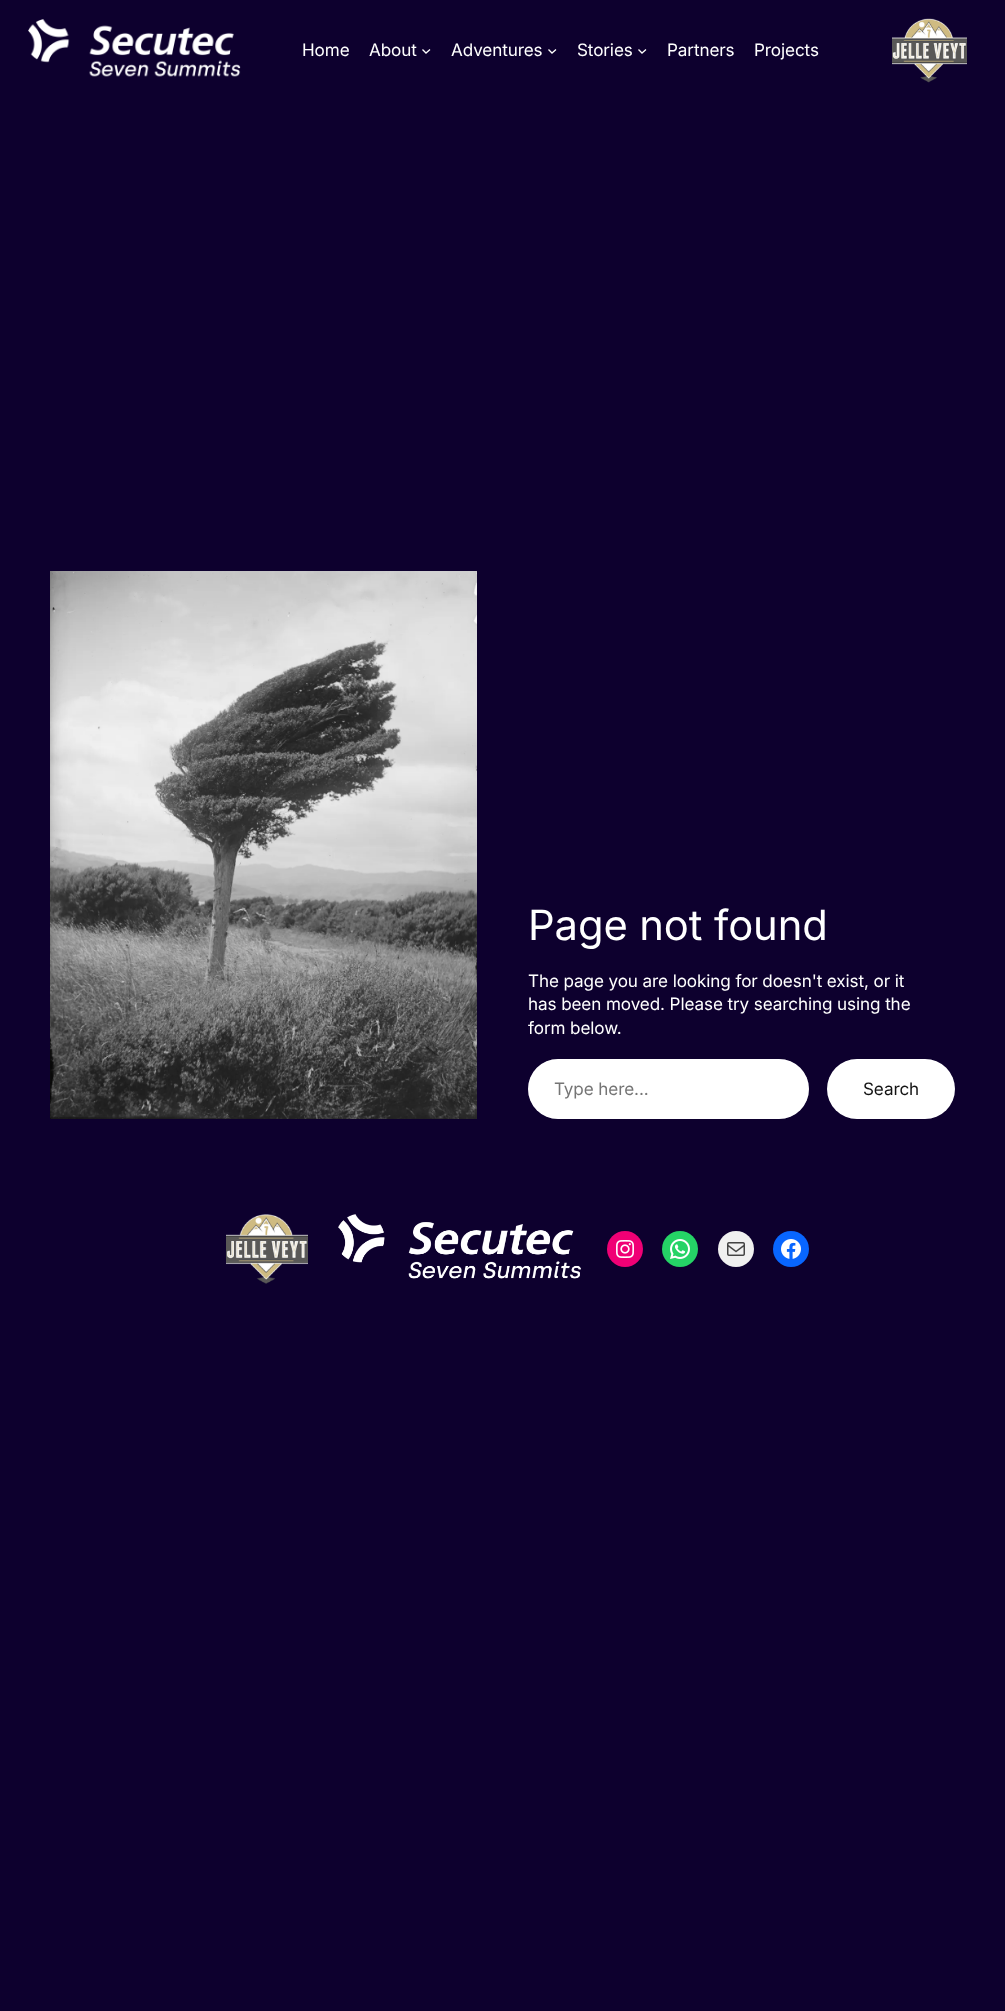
<!DOCTYPE html>
<meta charset="utf-8">
<style>body { margin: 0 } canvas { display: block }</style>
<canvas id="canvas" width="1005" height="2011"></canvas>
<script type="module">
  const canvas = document.getElementById("canvas");
  const ctx = canvas.getContext("2d");
  ctx.miterLimit = 4;
  ctx.fontKerning = "normal";
  async function loadImage(src) {
    const img = new Image();
    img.src = src;
    await img.decode();
    return img;
  }

  ctx.fillStyle = "#0d002e";
  ctx.fillRect(0, 0, 1005, 2011);
  ctx.drawImage(await loadImage("img1.png"), 28, 19, 213, 58);
  ctx.letterSpacing = "-0.1px";
  ctx.font = "17.1px Inter";
  ctx.fillStyle = "#ffffff";
  ctx.fillText("Home", 302, 56);
  ctx.fillText("About", 369, 56);
  ctx.beginPath();
  ctx.moveTo(422.5, 49.5);
  ctx.lineTo(426, 53);
  ctx.lineTo(430, 49.5);
  ctx.strokeStyle = "#ffffff";
  ctx.lineWidth = 1.3;
  ctx.stroke();
  ctx.fillText("Adventures", 451, 56);
  ctx.beginPath();
  ctx.moveTo(548.5, 49.5);
  ctx.lineTo(552, 53);
  ctx.lineTo(556, 49.5);
  ctx.stroke();
  ctx.fillText("Stories", 577, 56);
  ctx.beginPath();
  ctx.moveTo(638.5, 49.5);
  ctx.lineTo(642, 53);
  ctx.lineTo(646, 49.5);
  ctx.stroke();
  ctx.fillText("Partners", 667, 56);
  ctx.fillText("Projects", 754, 56);
  ctx.drawImage(await loadImage("img2.png"), 892, 18, 75, 65);
  ctx.drawImage(await loadImage("img3.png"), 50, 571, 427, 548);
  ctx.font = "41.75px Inter";
  ctx.fillText("Page not found", 528, 940);
  ctx.font = "17.1px Inter";
  ctx.fillText("The page you are looking for doesn't exist, or it", 528, 987);
  ctx.fillText("has been moved. Please try searching using the", 528, 1010);
  ctx.fillText("form below.", 528, 1034);
  ctx.beginPath();
  ctx.roundRect(528, 1059, 281, 60, 30);
  ctx.fill();
  ctx.beginPath();
  ctx.roundRect(528.5, 1059.5, 280, 59, 29.5);
  ctx.strokeStyle = "rgba(255, 255, 255, 0.2)";
  ctx.lineWidth = 1;
  ctx.stroke();
  ctx.fillStyle = "#757575";
  ctx.fillText("Type here...", 554, 1095);
  ctx.fillStyle = "#ffffff";
  ctx.beginPath();
  ctx.roundRect(827, 1059, 128, 60, 30);
  ctx.fill();
  ctx.fillStyle = "#131313";
  ctx.fillText("Search", 863, 1095);
  ctx.drawImage(await loadImage("img4.png"), 226, 1214, 82, 70);
  ctx.drawImage(await loadImage("img5.png"), 338, 1214, 243, 65);
  ctx.fillStyle = "#f00075";
  ctx.beginPath();
  ctx.arc(625, 1249, 18, 0, Math.PI * 2);
  ctx.fill();
  ctx.drawImage(await loadImage("img6.png"), 616, 1240, 18, 18);
  ctx.fillStyle = "#25d366";
  ctx.beginPath();
  ctx.arc(680, 1249, 18, 0, Math.PI * 2);
  ctx.fill();
  ctx.drawImage(await loadImage("img7.png"), 670, 1239, 20, 20);
  ctx.fillStyle = "#f0f0f0";
  ctx.beginPath();
  ctx.arc(736, 1249, 18, 0, Math.PI * 2);
  ctx.fill();
  ctx.drawImage(await loadImage("img8.png"), 727, 1242, 18, 14);
  ctx.fillStyle = "#0866ff";
  ctx.beginPath();
  ctx.arc(791, 1249, 18, 0, Math.PI * 2);
  ctx.fill();
  ctx.drawImage(await loadImage("img9.png"), 781, 1239, 20, 20);
</script>
